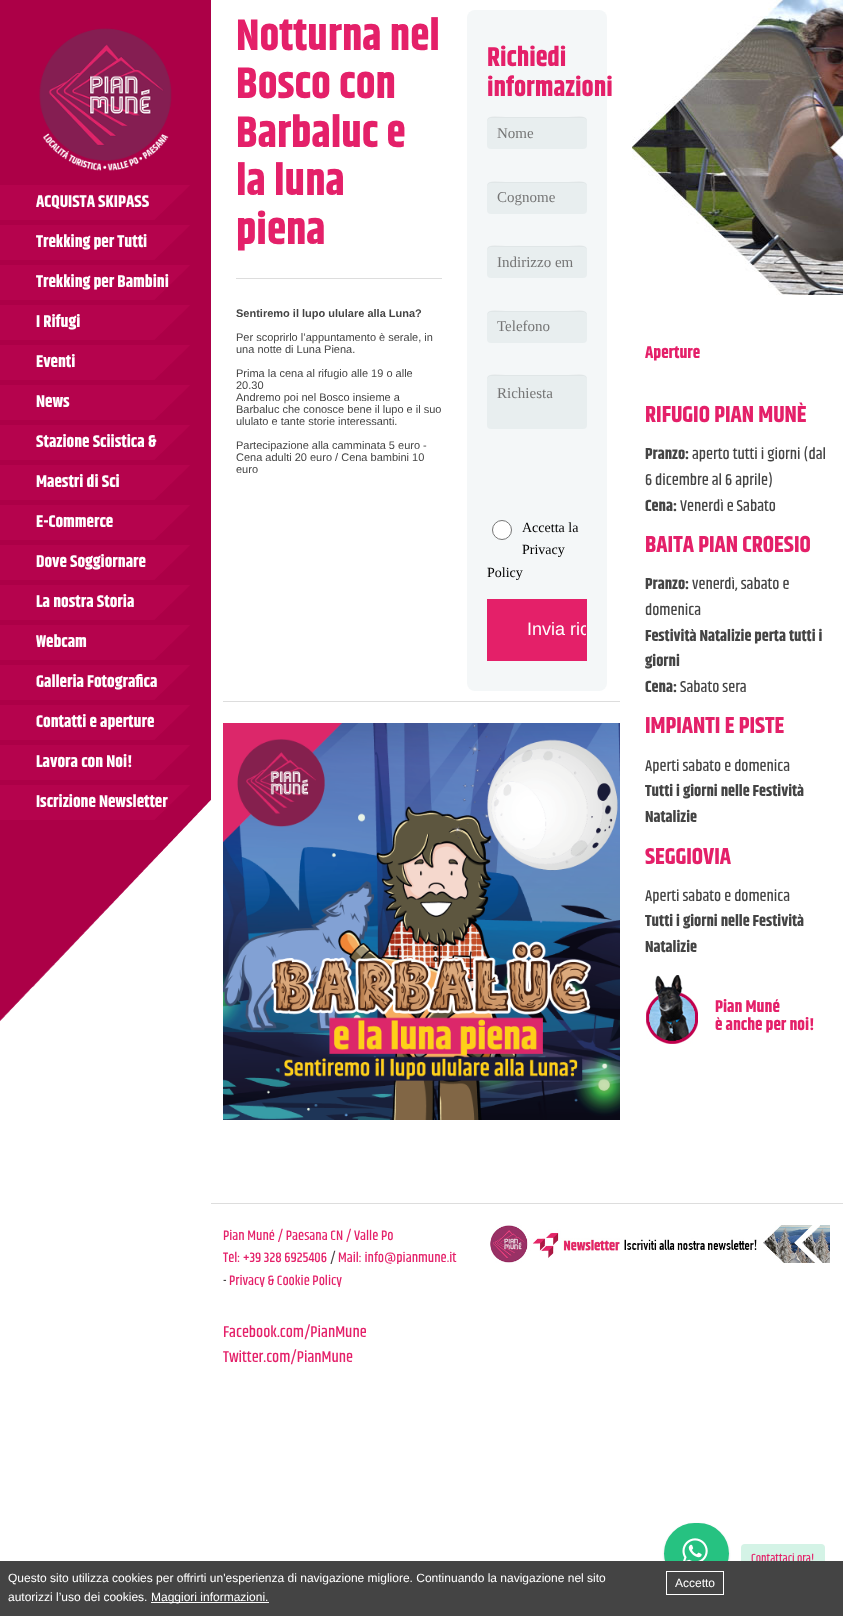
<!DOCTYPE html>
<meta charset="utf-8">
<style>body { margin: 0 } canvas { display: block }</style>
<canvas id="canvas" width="843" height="1616"></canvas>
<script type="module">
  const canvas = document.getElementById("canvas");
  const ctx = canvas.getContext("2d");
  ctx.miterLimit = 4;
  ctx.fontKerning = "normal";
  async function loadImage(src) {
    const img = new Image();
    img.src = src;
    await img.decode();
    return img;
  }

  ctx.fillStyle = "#ffffff";
  ctx.fillRect(0, 0, 843, 1616);
  ctx.font = "bold 44px Khand";
  ctx.fillStyle = "#e42069";
  ctx.fillText("Notturna nel", 236, 50);
  ctx.fillText("Bosco con", 236, 98);
  ctx.fillText("Barbaluc e", 236, 147);
  ctx.fillText("la luna", 236, 195);
  ctx.fillText("piena", 236, 244);
  ctx.fillStyle = "#dddddd";
  ctx.fillRect(236, 278, 206, 1);
  ctx.font = "bold 11px Liberation Sans";
  ctx.fillStyle = "#444444";
  ctx.fillText("Sentiremo il lupo ululare alla Luna?", 236, 317);
  ctx.font = "11px Liberation Sans";
  ctx.fillText("Per scoprirlo l’appuntamento è serale, in", 236, 341);
  ctx.fillText("una notte di Luna Piena.", 236, 353);
  ctx.fillText("Prima la cena al rifugio alle 19 o alle", 236, 377);
  ctx.fillText("20.30", 236, 389);
  ctx.fillText("Andremo poi nel Bosco insieme a", 236, 401);
  ctx.fillText("Barbaluc che conosce bene il lupo e il suo", 236, 413);
  ctx.fillText("ululato e tante storie interessanti.", 236, 425);
  ctx.fillText("Partecipazione alla camminata 5 euro -", 236, 449);
  ctx.fillText("Cena adulti 20 euro / Cena bambini 10", 236, 461);
  ctx.fillText("euro", 236, 473);
  ctx.fillStyle = "#f4f7f8";
  ctx.beginPath();
  ctx.roundRect(467, 10, 140, 681, 8);
  ctx.fill();
  ctx.font = "bold 27px Khand";
  ctx.fillStyle = "#e42069";
  ctx.fillText("Richiedi", 487, 66);
  ctx.fillText("informazioni", 487, 96);
  ctx.fillStyle = "#e8eeef";
  ctx.beginPath();
  ctx.roundRect(487, 117, 100, 32, 4);
  ctx.fill();
  ctx.fillStyle = "rgba(0, 0, 0, 0.03)";
  ctx.beginPath();
  ctx.moveTo(491, 118);
  ctx.lineTo(583, 118);
  ctx.bezierCurveTo(585, 118, 587, 120, 587, 122);
  ctx.bezierCurveTo(587, 113, 572, 117, 568, 117);
  ctx.lineTo(506, 117);
  ctx.bezierCurveTo(502, 117, 487, 113, 487, 122);
  ctx.bezierCurveTo(487, 120, 489, 118, 491, 118);
  ctx.closePath();
  ctx.fill();
  ctx.font = "15px Liberation Serif";
  ctx.fillStyle = "#757575";
  ctx.fillText("Nome", 497, 138);
  ctx.fillStyle = "#e8eeef";
  ctx.beginPath();
  ctx.roundRect(487, 182, 100, 32, 4);
  ctx.fill();
  ctx.fillStyle = "rgba(0, 0, 0, 0.03)";
  ctx.beginPath();
  ctx.moveTo(491, 183);
  ctx.lineTo(583, 183);
  ctx.bezierCurveTo(585, 183, 587, 185, 587, 187);
  ctx.bezierCurveTo(587, 178, 572, 182, 568, 182);
  ctx.lineTo(506, 182);
  ctx.bezierCurveTo(502, 182, 487, 178, 487, 187);
  ctx.bezierCurveTo(487, 185, 489, 183, 491, 183);
  ctx.closePath();
  ctx.fill();
  ctx.fillStyle = "#757575";
  ctx.fillText("Cognome", 497, 202);
  ctx.fillStyle = "#e8eeef";
  ctx.beginPath();
  ctx.roundRect(487, 246, 100, 32, 4);
  ctx.fill();
  ctx.fillStyle = "rgba(0, 0, 0, 0.03)";
  ctx.beginPath();
  ctx.moveTo(491, 247);
  ctx.lineTo(583, 247);
  ctx.bezierCurveTo(585, 247, 587, 249, 587, 251);
  ctx.bezierCurveTo(587, 242, 572, 246, 568, 246);
  ctx.lineTo(506, 246);
  ctx.bezierCurveTo(502, 246, 487, 242, 487, 251);
  ctx.bezierCurveTo(487, 249, 489, 247, 491, 247);
  ctx.closePath();
  ctx.fill();
  ctx.fillStyle = "#757575";
  ctx.fillText("Indirizzo em", 497, 267);
  ctx.fillStyle = "#e8eeef";
  ctx.beginPath();
  ctx.roundRect(487, 311, 100, 32, 4);
  ctx.fill();
  ctx.fillStyle = "rgba(0, 0, 0, 0.03)";
  ctx.beginPath();
  ctx.moveTo(491, 312);
  ctx.lineTo(583, 312);
  ctx.bezierCurveTo(585, 312, 587, 314, 587, 316);
  ctx.bezierCurveTo(587, 307, 572, 311, 568, 311);
  ctx.lineTo(506, 311);
  ctx.bezierCurveTo(502, 311, 487, 307, 487, 316);
  ctx.bezierCurveTo(487, 314, 489, 312, 491, 312);
  ctx.closePath();
  ctx.fill();
  ctx.fillStyle = "#757575";
  ctx.fillText("Telefono", 497, 331);
  ctx.fillStyle = "#e8eeef";
  ctx.beginPath();
  ctx.roundRect(487, 375, 100, 54, 4);
  ctx.fill();
  ctx.fillStyle = "rgba(0, 0, 0, 0.03)";
  ctx.beginPath();
  ctx.moveTo(491, 376);
  ctx.lineTo(583, 376);
  ctx.bezierCurveTo(585, 376, 587, 378, 587, 380);
  ctx.bezierCurveTo(587, 371, 572, 375, 568, 375);
  ctx.lineTo(506, 375);
  ctx.bezierCurveTo(502, 375, 487, 371, 487, 380);
  ctx.bezierCurveTo(487, 378, 489, 376, 491, 376);
  ctx.closePath();
  ctx.fill();
  ctx.fillStyle = "#757575";
  ctx.fillText("Richiesta", 497, 398);
  ctx.fillStyle = "#ffffff";
  ctx.beginPath();
  ctx.arc(502, 530, 9.5, 0, Math.PI * 2);
  ctx.fill();
  ctx.strokeStyle = "#767676";
  ctx.stroke();
  ctx.font = "14px Liberation Serif";
  ctx.fillStyle = "#000000";
  ctx.fillText("Accetta la", 522, 532);
  ctx.fillText("Privacy", 522, 554);
  ctx.fillText("Policy", 487, 577);
  ctx.fillStyle = "#e42069";
  ctx.fillRect(488, 600, 98, 58);
  ctx.fillRect(487, 599, 100, 1);
  ctx.fillRect(586, 599, 1, 62);
  ctx.fillRect(487, 658, 100, 3);
  ctx.fillRect(487, 599, 1, 62);
  ctx.save();
  ctx.beginPath();
  ctx.rect(488, 600, 98, 58);
  ctx.clip();
  ctx.font = "18px Liberation Sans";
  ctx.fillStyle = "#ffffff";
  ctx.fillText("Invia ric", 527, 635);
  ctx.restore();
  ctx.fillStyle = "#dddddd";
  ctx.fillRect(223, 701, 397, 1);
  ctx.drawImage(await loadImage("img1.png"), 223, 723, 397, 397);
  ctx.drawImage(await loadImage("img2.png"), 632, 0, 211, 295);
  ctx.font = "bold 17px Khand";
  ctx.fillStyle = "#e42069";
  ctx.fillText("Aperture", 645, 358);
  ctx.font = "bold 23px Khand";
  ctx.fillText("RIFUGIO PIAN MUNÈ", 645, 422);
  ctx.font = "bold 16px Khand";
  ctx.fillStyle = "#444444";
  ctx.fillText("Pranzo:", 645, 459);
  ctx.font = "500 16px Khand";
  ctx.fillText("aperto tutti i giorni (dal", 692, 459);
  ctx.fillText("6 dicembre al 6 aprile)", 645, 485);
  ctx.font = "bold 16px Khand";
  ctx.fillText("Cena:", 645, 511);
  ctx.font = "500 16px Khand";
  ctx.fillText("Venerdì e Sabato", 680, 511);
  ctx.font = "bold 23px Khand";
  ctx.fillStyle = "#e42069";
  ctx.fillText("BAITA PIAN CROESIO", 645, 552);
  ctx.font = "bold 16px Khand";
  ctx.fillStyle = "#444444";
  ctx.fillText("Pranzo:", 645, 589);
  ctx.font = "500 16px Khand";
  ctx.fillText("venerdì, sabato e", 692, 589);
  ctx.fillText("domenica", 645, 615);
  ctx.font = "bold 16px Khand";
  ctx.fillText("Festività Natalizie perta tutti i", 645, 641);
  ctx.fillText("giorni", 645, 666);
  ctx.fillText("Cena:", 645, 692);
  ctx.font = "500 16px Khand";
  ctx.fillText("Sabato sera", 680, 692);
  ctx.font = "bold 23px Khand";
  ctx.fillStyle = "#e42069";
  ctx.fillText("IMPIANTI E PISTE", 645, 733);
  ctx.font = "500 16px Khand";
  ctx.fillStyle = "#444444";
  ctx.fillText("Aperti sabato e domenica", 645, 771);
  ctx.font = "bold 16px Khand";
  ctx.fillText("Tutti i giorni nelle Festività", 645, 796);
  ctx.fillText("Natalizie", 645, 822);
  ctx.font = "bold 23px Khand";
  ctx.fillStyle = "#e42069";
  ctx.fillText("SEGGIOVIA", 645, 864);
  ctx.font = "500 16px Khand";
  ctx.fillStyle = "#444444";
  ctx.fillText("Aperti sabato e domenica", 645, 901);
  ctx.font = "bold 16px Khand";
  ctx.fillText("Tutti i giorni nelle Festività", 645, 926);
  ctx.fillText("Natalizie", 645, 952);
  ctx.drawImage(await loadImage("img3.png"), 646, 975, 52, 69);
  ctx.font = "bold 17px Khand";
  ctx.fillStyle = "#e42069";
  ctx.fillText("Pian Muné", 715, 1012);
  ctx.fillText("è anche per noi!", 715, 1030);
  ctx.fillStyle = "#dddddd";
  ctx.fillRect(211, 1203, 632, 1);
  ctx.font = "500 14px Khand";
  ctx.fillStyle = "#e42069";
  ctx.fillText("Pian Muné / Paesana CN / Valle Po", 223, 1240);
  ctx.fillText("Tel: +39 328 6925406", 223, 1262);
  ctx.fillStyle = "#444444";
  ctx.fillText("/", 330, 1262);
  ctx.fillStyle = "#e42069";
  ctx.fillText("Mail: info@pianmune.it", 338, 1262);
  ctx.fillStyle = "#444444";
  ctx.fillText("-", 223, 1285);
  ctx.fillStyle = "#e42069";
  ctx.fillText("Privacy & Cookie Policy", 229, 1285);
  ctx.font = "500 16px Khand";
  ctx.fillText("Facebook.com/PianMune", 223, 1337);
  ctx.fillText("Twitter.com/PianMune", 223, 1362);
  ctx.drawImage(await loadImage("img4.png"), 490, 1225, 340, 38);
  ctx.fillStyle = "rgba(0, 0, 0, 0.15)";
  ctx.filter = "blur(1px)";
  ctx.beginPath();
  ctx.roundRect(664, 1524, 65, 61, 30.5);
  ctx.fill();
  ctx.filter = "none";
  ctx.fillStyle = "#26c281";
  ctx.beginPath();
  ctx.roundRect(664, 1523, 65, 61, 30.5);
  ctx.fill();
  ctx.fillStyle = "#d4f3e6";
  ctx.beginPath();
  ctx.roundRect(741, 1544, 84, 29, 4);
  ctx.fill();
  ctx.font = "500 12px Khand";
  ctx.fillStyle = "#e42069";
  ctx.fillText("Contattaci ora!", 751, 1562);
  ctx.fillStyle = "#444444";
  ctx.fillRect(0, 1561, 843, 55);
  ctx.font = "12px Liberation Sans";
  ctx.fillStyle = "#ffffff";
  ctx.fillText("Questo sito utilizza cookies per offrirti un'esperienza di navigazione migliore. Continuando la navigazione nel sito", 8, 1582);
  ctx.fillText("autorizzi l’uso dei cookies.", 8, 1601);
  ctx.fillRect(151, 1602, 118, 1);
  ctx.fillText("Maggiori informazioni.", 151, 1601);
  ctx.strokeStyle = "#ffffff";
  ctx.strokeRect(666.5, 1571.5, 57, 23);
  ctx.fillText("Accetto", 675, 1587);
  ctx.fillStyle = "#ac0047";
  ctx.fillRect(0, 0, 211, 1022);
  ctx.drawImage(await loadImage("img5.png"), 0, 800, 211, 420);
  ctx.drawImage(await loadImage("img6.png"), 39, 28, 133, 143);
  ctx.drawImage(await loadImage("img7.png"), 0, 185, 190, 35);
  ctx.font = "bold 17px Khand";
  ctx.fillStyle = "#ffffff";
  ctx.fillText("ACQUISTA SKIPASS", 36, 207);
  ctx.drawImage(await loadImage("img7.png"), 0, 225, 190, 35);
  ctx.fillText("Trekking per Tutti", 36, 247);
  ctx.drawImage(await loadImage("img7.png"), 0, 265, 190, 35);
  ctx.fillText("Trekking per Bambini", 36, 287);
  ctx.drawImage(await loadImage("img7.png"), 0, 305, 190, 35);
  ctx.fillText("I Rifugi", 36, 327);
  ctx.drawImage(await loadImage("img7.png"), 0, 345, 190, 35);
  ctx.fillText("Eventi", 36, 367);
  ctx.drawImage(await loadImage("img7.png"), 0, 385, 190, 35);
  ctx.fillText("News", 36, 407);
  ctx.drawImage(await loadImage("img7.png"), 0, 425, 190, 35);
  ctx.fillText("Stazione Sciistica &", 36, 447);
  ctx.drawImage(await loadImage("img7.png"), 0, 465, 190, 35);
  ctx.fillText("Maestri di Sci", 36, 487);
  ctx.drawImage(await loadImage("img7.png"), 0, 505, 190, 35);
  ctx.fillText("E-Commerce", 36, 527);
  ctx.drawImage(await loadImage("img7.png"), 0, 545, 190, 35);
  ctx.fillText("Dove Soggiornare", 36, 567);
  ctx.drawImage(await loadImage("img7.png"), 0, 585, 190, 35);
  ctx.fillText("La nostra Storia", 36, 607);
  ctx.drawImage(await loadImage("img7.png"), 0, 625, 190, 35);
  ctx.fillText("Webcam", 36, 647);
  ctx.drawImage(await loadImage("img7.png"), 0, 665, 190, 35);
  ctx.fillText("Galleria Fotografica", 36, 687);
  ctx.drawImage(await loadImage("img7.png"), 0, 705, 190, 35);
  ctx.fillText("Contatti e aperture", 36, 727);
  ctx.drawImage(await loadImage("img7.png"), 0, 745, 190, 35);
  ctx.fillText("Lavora con Noi!", 36, 767);
  ctx.drawImage(await loadImage("img7.png"), 0, 785, 190, 35);
  ctx.fillText("Iscrizione Newsletter", 36, 807);
  ctx.drawImage(await loadImage("img8.png"), 682, 1538, 26, 23);
</script>
